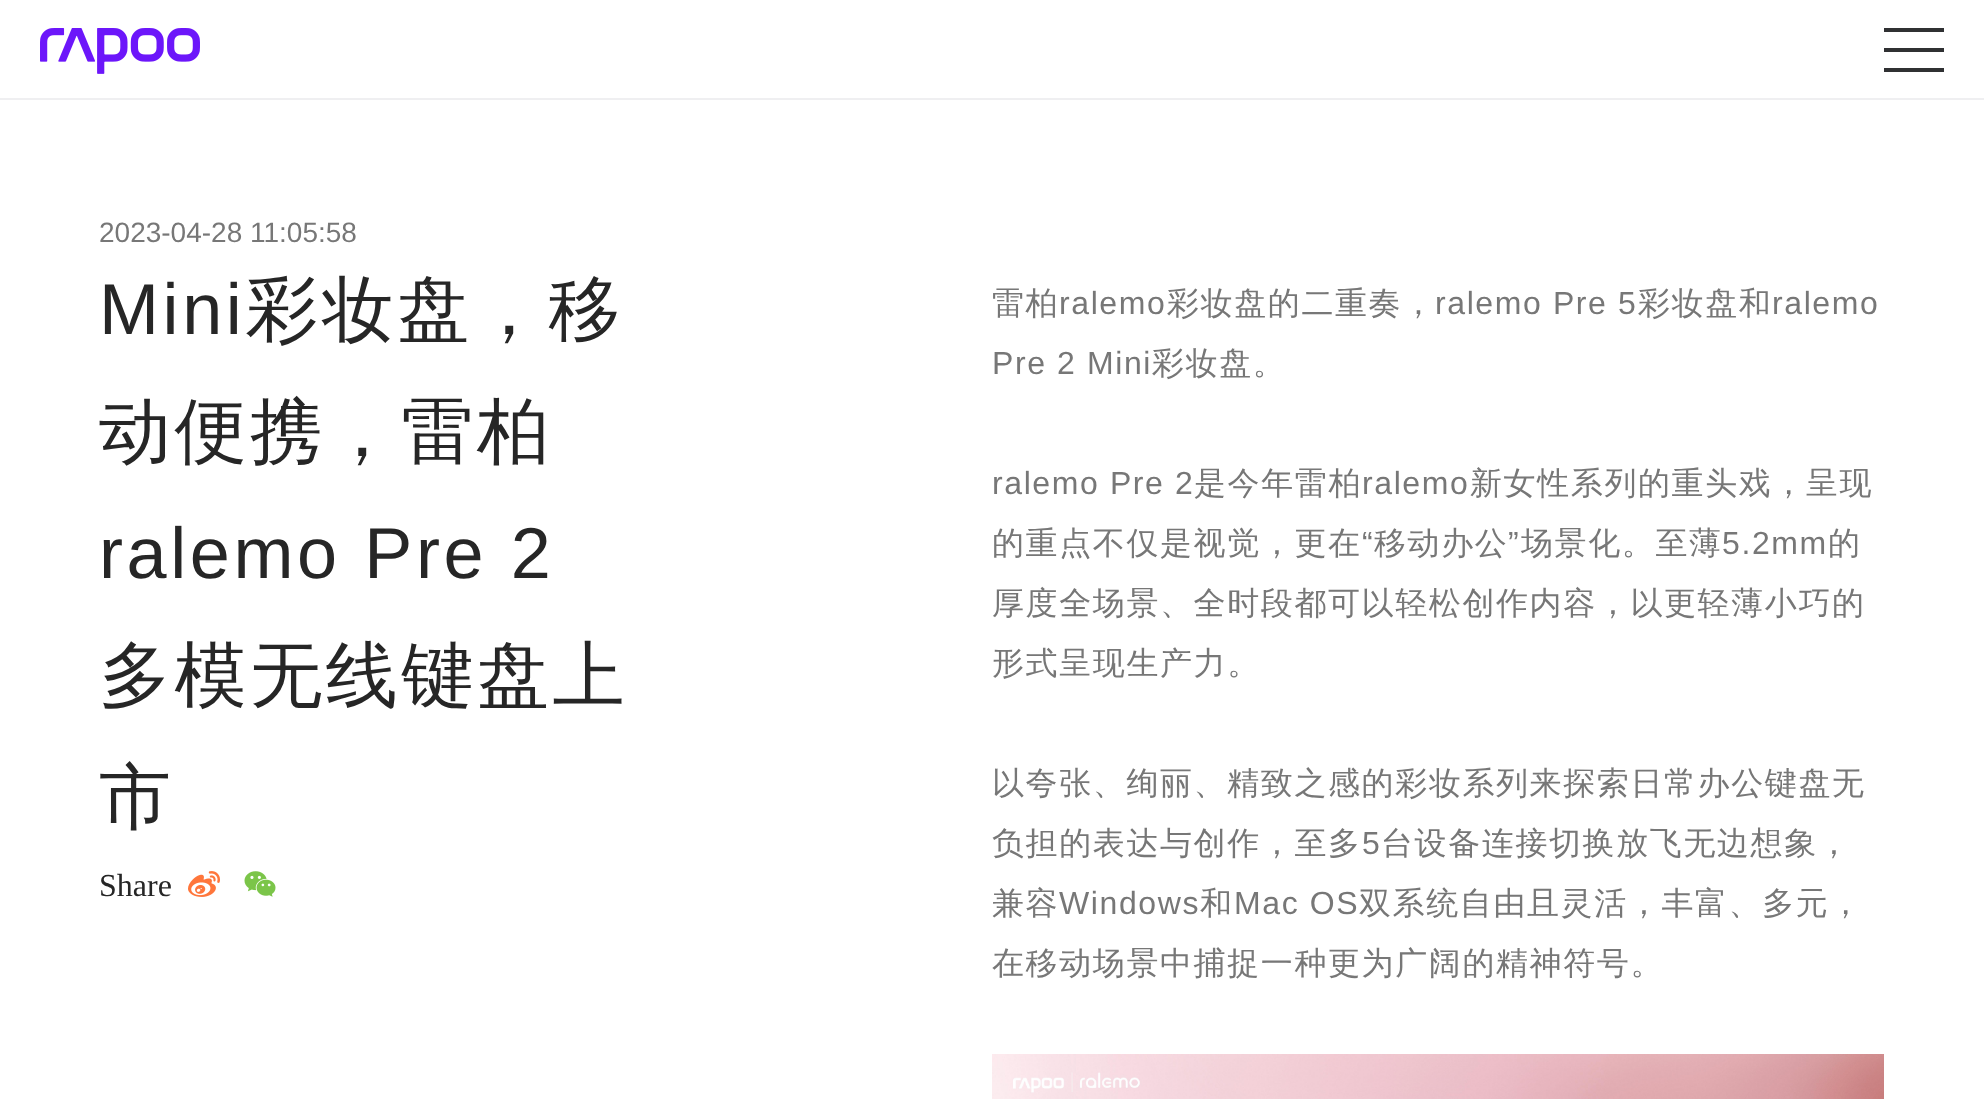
<!DOCTYPE html>
<meta charset="utf-8">
<style>body { margin: 0 } canvas { display: block }</style>
<canvas id="canvas" width="1984" height="1099"></canvas>
<script type="module">
  const canvas = document.getElementById("canvas");
  const ctx = canvas.getContext("2d");
  ctx.miterLimit = 4;
  ctx.fontKerning = "normal";
  async function loadImage(src) {
    const img = new Image();
    img.src = src;
    await img.decode();
    return img;
  }

  ctx.fillStyle = "#ffffff";
  ctx.fillRect(0, 0, 1984, 1099);
  ctx.fillStyle = "#efeff1";
  ctx.fillRect(0, 98, 1984, 2);
  ctx.drawImage(await loadImage("img1.png"), 40, 28, 160, 46);
  ctx.fillStyle = "#303133";
  ctx.fillRect(1884, 28, 60, 4);
  ctx.fillRect(1884, 48, 60, 4);
  ctx.fillRect(1884, 68, 60, 4);
  ctx.font = "28px Liberation Sans";
  ctx.fillStyle = "#777777";
  ctx.fillText("2023-04-28 11:05:58", 99, 242);
  ctx.letterSpacing = "3.6px";
  ctx.font = "72px Liberation Sans";
  ctx.fillStyle = "#262626";
  ctx.fillText("Mini", 99, 334);
  ctx.font = "500 72px WenQuanYi Zen Hei";
  ctx.fillText("彩妆盘，移", 246, 334);
  ctx.fillText("动便携，雷柏", 99, 456);
  ctx.font = "72px Liberation Sans";
  ctx.fillText("ralemo Pre 2", 99, 578);
  ctx.font = "500 72px WenQuanYi Zen Hei";
  ctx.fillText("多模无线键盘上", 99, 700);
  ctx.fillText("市", 99, 822);
  ctx.letterSpacing = "0px";
  ctx.font = "32px Liberation Serif";
  ctx.fillText("Share", 99, 896);
  ctx.drawImage(await loadImage("img2.png"), 188, 871, 32, 26);
  ctx.drawImage(await loadImage("img3.png"), 244, 871, 32, 26);
  ctx.letterSpacing = "1.6px";
  ctx.font = "500 32px WenQuanYi Zen Hei";
  ctx.fillStyle = "#777777";
  ctx.fillText("雷柏", 992, 314);
  ctx.font = "32px Liberation Sans";
  ctx.fillText("ralemo", 1059, 314);
  ctx.font = "500 32px WenQuanYi Zen Hei";
  ctx.fillText("彩妆盘的二重奏，", 1167, 314);
  ctx.font = "32px Liberation Sans";
  ctx.fillText("ralemo Pre 5", 1435, 314);
  ctx.font = "500 32px WenQuanYi Zen Hei";
  ctx.fillText("彩妆盘和", 1638, 314);
  ctx.font = "32px Liberation Sans";
  ctx.fillText("ralemo", 1772, 314);
  ctx.fillText("Pre 2 Mini", 992, 374);
  ctx.font = "500 32px WenQuanYi Zen Hei";
  ctx.fillText("彩妆盘。", 1152, 374);
  ctx.font = "32px Liberation Sans";
  ctx.fillText("ralemo Pre 2", 992, 494);
  ctx.font = "500 32px WenQuanYi Zen Hei";
  ctx.fillText("是今年雷柏", 1194, 494);
  ctx.font = "32px Liberation Sans";
  ctx.fillText("ralemo", 1362, 494);
  ctx.font = "500 32px WenQuanYi Zen Hei";
  ctx.fillText("新女性系列的重头戏，呈现", 1470, 494);
  ctx.fillText("的重点不仅是视觉，更在", 992, 554);
  ctx.font = "32px Liberation Sans";
  ctx.fillText("“", 1362, 554);
  ctx.font = "500 32px WenQuanYi Zen Hei";
  ctx.fillText("移动办公", 1374, 554);
  ctx.font = "32px Liberation Sans";
  ctx.fillText("”", 1508, 554);
  ctx.font = "500 32px WenQuanYi Zen Hei";
  ctx.fillText("场景化。至薄", 1521, 554);
  ctx.font = "32px Liberation Sans";
  ctx.fillText("5.2mm", 1722, 554);
  ctx.font = "500 32px WenQuanYi Zen Hei";
  ctx.fillText("的", 1828, 554);
  ctx.fillText("厚度全场景、全时段都可以轻松创作内容，以更轻薄小巧的", 992, 614);
  ctx.fillText("形式呈现生产力。", 992, 674);
  ctx.fillText("以夸张、绚丽、精致之感的彩妆系列来探索日常办公键盘⽆", 992, 794);
  ctx.fillText("负担的表达与创作，至多", 992, 854);
  ctx.font = "32px Liberation Sans";
  ctx.fillText("5", 1362, 854);
  ctx.font = "500 32px WenQuanYi Zen Hei";
  ctx.fillText("台设备连接切换放飞无边想象，", 1381, 854);
  ctx.fillText("兼容", 992, 914);
  ctx.font = "32px Liberation Sans";
  ctx.fillText("Windows", 1059, 914);
  ctx.font = "500 32px WenQuanYi Zen Hei";
  ctx.fillText("和", 1200, 914);
  ctx.font = "32px Liberation Sans";
  ctx.fillText("Mac OS", 1234, 914);
  ctx.font = "500 32px WenQuanYi Zen Hei";
  ctx.fillText("双系统自由且灵活，丰富、多元，", 1359, 914);
  ctx.fillText("在移动场景中捕捉一种更为广阔的精神符号。", 992, 974);
  ctx.drawImage(await loadImage("img4.png"), 992, 1054, 892, 45);
</script>
